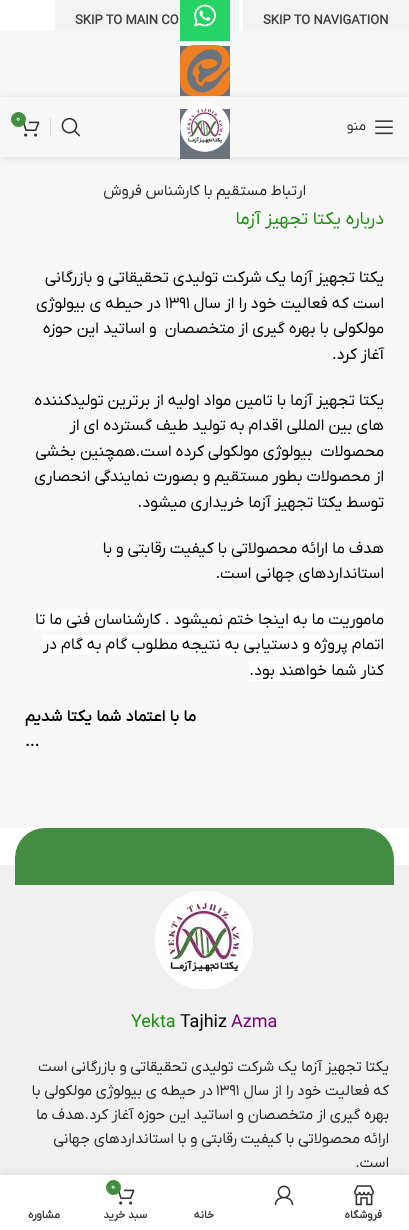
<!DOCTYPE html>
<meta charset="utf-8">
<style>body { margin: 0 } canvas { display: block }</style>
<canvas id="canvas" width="409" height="1230"></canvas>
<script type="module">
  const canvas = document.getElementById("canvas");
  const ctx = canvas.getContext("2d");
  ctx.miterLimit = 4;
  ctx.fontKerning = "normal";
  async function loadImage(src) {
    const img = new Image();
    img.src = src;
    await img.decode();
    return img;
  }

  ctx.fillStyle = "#ffffff";
  ctx.fillRect(0, 0, 409, 1230);
  ctx.fillStyle = "#f3f3f3";
  ctx.fillRect(243, 0, 166, 31);
  ctx.font = "bold 13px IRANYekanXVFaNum";
  ctx.fillStyle = "#3e3e3e";
  ctx.fillText("SKIP TO NAVIGATION", 263, 24);
  ctx.fillStyle = "#f3f3f3";
  ctx.fillRect(55, 0, 184, 31);
  ctx.fillStyle = "#3e3e3e";
  ctx.fillText("SKIP TO MAIN CO", 75, 24);
  ctx.fillStyle = "#f7f7f7";
  ctx.fillRect(0, 31, 409, 797);
  ctx.save();
  ctx.beginPath();
  ctx.moveTo(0, 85);
  ctx.lineTo(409, 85);
  ctx.lineTo(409, 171);
  ctx.lineTo(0, 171);
  ctx.closePath();
  ctx.moveTo(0, 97);
  ctx.lineTo(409, 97);
  ctx.lineTo(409, 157);
  ctx.lineTo(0, 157);
  ctx.closePath();
  ctx.clip("evenodd");
  ctx.fillStyle = "rgba(0, 0, 0, 0.1)";
  ctx.filter = "blur(4px)";
  ctx.beginPath();
  ctx.rect(0, 98, 409, 60);
  ctx.fill();
  ctx.filter = "none";
  ctx.restore();
  ctx.fillStyle = "#69727d";
  ctx.fillRect(180, 109, 50, 50);
  ctx.drawImage(await loadImage("img1.png"), 180, 102, 50, 50);
  ctx.drawImage(await loadImage("img2.png"), 61, 117, 20, 20);
  ctx.fillStyle = "#dddddd";
  ctx.fillRect(50, 118, 1, 18);
  ctx.drawImage(await loadImage("img3.png"), 23, 121, 17, 16);
  ctx.fillStyle = "#428d42";
  ctx.beginPath();
  ctx.arc(18.5, 119.5, 7.5, 0, Math.PI * 2);
  ctx.fill();
  ctx.font = "9px IRANYekanXVFaNum";
  ctx.fillStyle = "#ffffff";
  ctx.fillText("0", 16, 121);
  ctx.drawImage(await loadImage("img4.png"), 375, 120, 18, 15);
  ctx.direction = "rtl";
  ctx.font = "14px IRANYekanXVFaNum";
  ctx.fillStyle = "#333333";
  ctx.fillText("منو", 366, 130);
  ctx.fillStyle = "#25d366";
  ctx.fillRect(180, 0, 50, 41);
  ctx.drawImage(await loadImage("img5.png"), 194, 4, 22, 23);
  ctx.fillStyle = "#69727d";
  ctx.fillRect(180, 46, 50, 50);
  ctx.drawImage(await loadImage("img6.png"), 180, 45, 50, 51);
  ctx.font = "15px IRANYekanXVFaNum";
  ctx.fillStyle = "#262626";
  ctx.fillText("ارتباط مستقیم با کارشناس فروش", 306, 195);
  ctx.font = "18px IRANYekanXVFaNum";
  ctx.fillStyle = "#1b910e";
  ctx.fillText("درباره یکتا تجهیز آزما", 384, 224);
  ctx.font = "16px IRANYekanXVFaNum";
  ctx.fillStyle = "#000000";
  ctx.fillText("یکتا تجهیز آزما یک شرکت تولیدی تحقیقاتی و بازرگانی", 384, 282);
  ctx.fillText("است که فعالیت خود را از سال", 384, 308);
  ctx.direction = "ltr";
  ctx.fillText("1391", 165, 308);
  ctx.direction = "rtl";
  ctx.fillText("در حیطه ی بیولوژی", 161, 308);
  ctx.fillText("مولکولی با بهره گیری از متخصصان  و اساتید این حوزه", 384, 333);
  ctx.fillText("آغاز کرد.", 384, 359);
  ctx.fillText("یکتا تجهیز آزما با تامین مواد اولیه از برترین تولیدکننده", 384, 405);
  ctx.fillText("های بین المللی اقدام به تولید طیف گسترده ای از", 384, 430);
  ctx.fillText("محصولات  بیولوژی مولکولی کرده است.همچنین بخشی", 384, 456);
  ctx.fillText("از محصولات بطور مستقیم و بصورت نمایندگی انحصاری", 384, 481);
  ctx.fillText("توسط یکتا تجهیز آزما خریداری میشود.", 384, 507);
  ctx.fillText("هدف ما ارائه محصولاتی با کیفیت رقابتی و با", 384, 553);
  ctx.fillText("استانداردهای جهانی است.", 384, 578);
  ctx.fillStyle = "#ffffff";
  ctx.fillRect(35, 610, 349, 20);
  ctx.fillStyle = "#000000";
  ctx.fillText("ماموریت ما به اینجا ختم نمیشود . کارشناسان فنی ما تا", 384, 624);
  ctx.fillStyle = "#ffffff";
  ctx.fillRect(43, 635, 341, 20);
  ctx.fillStyle = "#000000";
  ctx.fillText("اتمام پروژه و دستیابی به نتیجه مطلوب گام به گام در", 384, 649);
  ctx.fillStyle = "#ffffff";
  ctx.fillRect(249, 661, 135, 20);
  ctx.fillStyle = "#000000";
  ctx.fillText("کنار شما خواهند بود.", 384, 675);
  ctx.wordSpacing = "0.25px";
  ctx.font = "bold 16px IRANYekanXVFaNum";
  ctx.fillText("ما با اعتماد شما یکتا شدیم", 196, 721);
  ctx.wordSpacing = "0px";
  ctx.direction = "ltr";
  ctx.fillText("...", 25, 746);
  ctx.fillStyle = "#f0f0f0";
  ctx.fillRect(0, 865, 409, 310);
  ctx.fillStyle = "#428d42";
  ctx.beginPath();
  ctx.roundRect(15, 828, 379, 57, [30, 31, 0, 0]);
  ctx.fill();
  ctx.drawImage(await loadImage("img7.png"), 154, 890, 99, 100);
  ctx.font = "18px IRANYekanXVFaNum";
  ctx.fillStyle = "#800080";
  ctx.fillText("Azma", 231, 1027);
  ctx.fillStyle = "#000000";
  ctx.fillText("Tajhiz", 180, 1027);
  ctx.fillStyle = "#1b910e";
  ctx.fillText("Yekta", 131, 1027);
  ctx.direction = "rtl";
  ctx.font = "15px IRANYekanXVFaNum";
  ctx.fillStyle = "#262626";
  ctx.fillText("یکتا تجهیز آزما یک شرکت تولیدی تحقیقاتی و بازرگانی است", 389, 1071);
  ctx.fillText("که فعالیت خود را از سال", 389, 1095);
  ctx.direction = "ltr";
  ctx.fillText("1391", 216, 1095);
  ctx.direction = "rtl";
  ctx.fillText("در حیطه ی بیولوژی مولکولی با", 213, 1095);
  ctx.fillText("بهره گیری از متخصصان و اساتید این حوزه آغاز کرد.هدف ما", 389, 1119);
  ctx.fillText("ارائه محصولاتی با کیفیت رقابتی و با استانداردهای جهانی", 389, 1143);
  ctx.fillText("است.", 389, 1167);
  ctx.fillStyle = "rgba(0, 0, 0, 0.12)";
  ctx.filter = "blur(4.5px)";
  ctx.beginPath();
  ctx.rect(0, 1175, 409, 55);
  ctx.fill();
  ctx.filter = "none";
  ctx.fillStyle = "#ffffff";
  ctx.fillRect(0, 1175, 409, 55);
  ctx.drawImage(await loadImage("img8.png"), 274, 1185, 20, 20);
  ctx.drawImage(await loadImage("img9.png"), 118, 1189, 17, 16);
  ctx.fillStyle = "#428d42";
  ctx.beginPath();
  ctx.arc(113.5, 1187.5, 7.5, 0, Math.PI * 2);
  ctx.fill();
  ctx.direction = "ltr";
  ctx.font = "9px IRANYekanXVFaNum";
  ctx.fillStyle = "#ffffff";
  ctx.fillText("0", 111, 1189);
  ctx.direction = "rtl";
  ctx.font = "bold 11px IRANYekanXVFaNum";
  ctx.fillStyle = "#333333";
  ctx.fillText("سبد خرید", 147, 1218);
  ctx.drawImage(await loadImage("img10.png"), 354, 1185, 20, 21);
  ctx.fillText("فروشگاه", 382, 1218);
  ctx.fillText("خانه", 214, 1218);
  ctx.fillText("مشاوره", 60, 1218);
</script>
